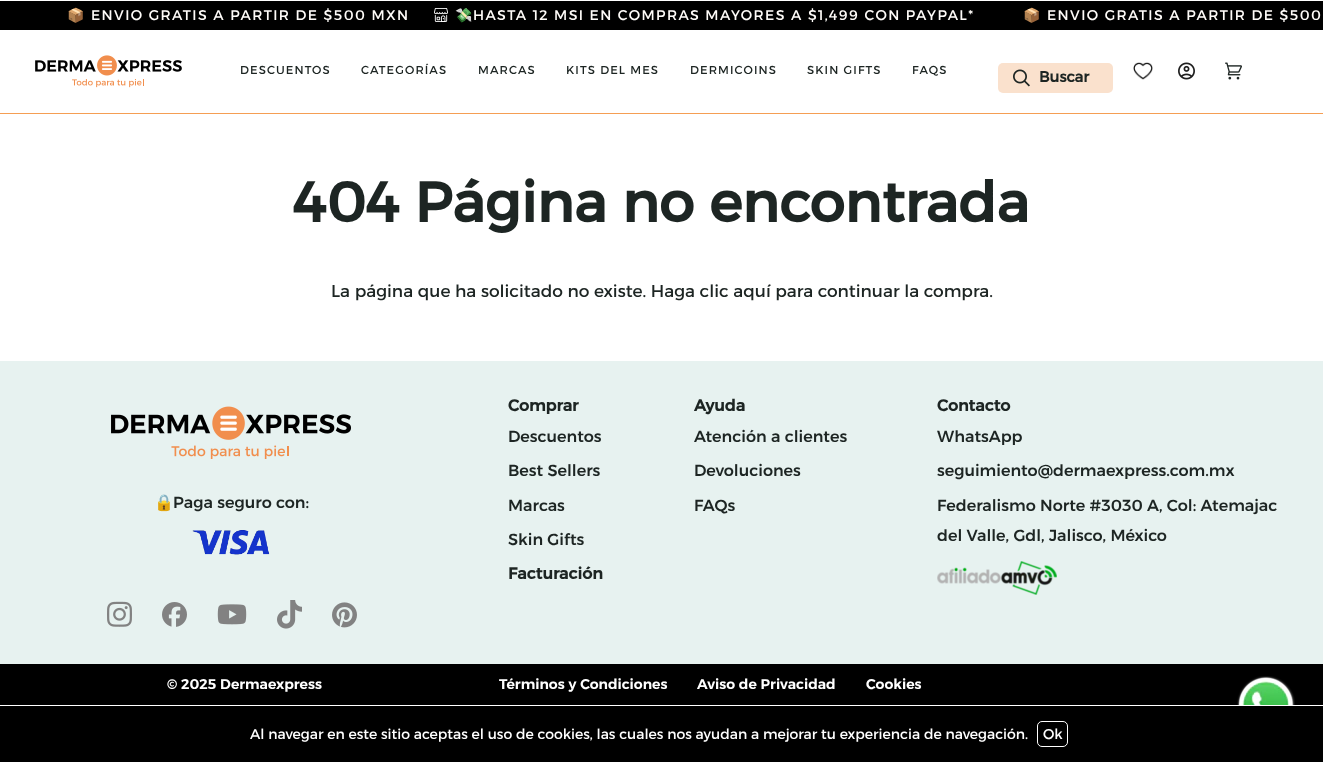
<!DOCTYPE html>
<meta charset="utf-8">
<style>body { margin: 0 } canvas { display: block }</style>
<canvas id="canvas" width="1323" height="767"></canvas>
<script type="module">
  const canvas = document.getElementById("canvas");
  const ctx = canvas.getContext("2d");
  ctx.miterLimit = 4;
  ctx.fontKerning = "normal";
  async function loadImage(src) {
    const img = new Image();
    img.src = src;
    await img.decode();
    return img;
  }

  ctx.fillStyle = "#ffffff";
  ctx.fillRect(0, 0, 1323, 767);
  ctx.fillStyle = "#000000";
  ctx.fillRect(0, 1, 1323, 29);
  ctx.letterSpacing = "1.4px";
  ctx.font = "14px Noto Color Emoji";
  ctx.fillStyle = "#fffcf9";
  ctx.fillText("📦", 67, 20);
  ctx.font = "14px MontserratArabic";
  ctx.fillText("ENVIO GRATIS A PARTIR DE $500 MXN", 91, 20);
  ctx.drawImage(await loadImage("img1.png"), 434, 8, 14, 14);
  ctx.font = "14px Noto Color Emoji";
  ctx.fillText("💸", 455, 20);
  ctx.font = "14px MontserratArabic";
  ctx.fillText("HASTA 12 MSI EN COMPRAS MAYORES A $1,499 CON PAYPAL*", 473, 20);
  ctx.font = "14px Noto Color Emoji";
  ctx.fillText("📦", 1023, 20);
  ctx.font = "14px MontserratArabic";
  ctx.fillText("ENVIO GRATIS A PARTIR DE $500", 1047, 20);
  ctx.fillStyle = "#f59e54";
  ctx.fillRect(0, 113, 1323, 1);
  ctx.drawImage(await loadImage("img2.png"), 35, 55, 147, 33);
  ctx.letterSpacing = "1.1px";
  ctx.font = "11.5px MontserratArabic";
  ctx.fillStyle = "#1d2523";
  ctx.fillText("DESCUENTOS", 240, 74);
  ctx.fillText("CATEGORÍAS", 361, 74);
  ctx.fillText("MARCAS", 478, 74);
  ctx.fillText("KITS DEL MES", 566, 74);
  ctx.fillText("DERMICOINS", 690, 74);
  ctx.fillText("SKIN GIFTS", 807, 74);
  ctx.fillText("FAQS", 912, 74);
  ctx.fillStyle = "#fae1cd";
  ctx.beginPath();
  ctx.roundRect(998, 63, 115, 30, 5);
  ctx.fill();
  ctx.drawImage(await loadImage("img3.png"), 1013, 69, 17, 18);
  ctx.letterSpacing = "0px";
  ctx.font = "bold 15px 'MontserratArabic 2'";
  ctx.fillStyle = "#1d2523";
  ctx.fillText("Buscar", 1039, 82);
  ctx.drawImage(await loadImage("img4.png"), 1133, 62, 20, 18);
  ctx.drawImage(await loadImage("img5.png"), 1178, 62, 17, 18);
  ctx.drawImage(await loadImage("img6.png"), 1225, 62, 17, 18);
  ctx.font = "bold 56px 'MontserratArabic 2'";
  ctx.fillText("404 Página no encontrada", 293, 222);
  ctx.font = "17px MontserratArabic";
  ctx.fillText("La página que ha solicitado no existe. Haga clic aquí para continuar la compra.", 331, 297);
  ctx.fillStyle = "#e7f2f0";
  ctx.fillRect(0, 361, 1323, 303);
  ctx.drawImage(await loadImage("img7.png"), 111, 406, 240, 53);
  ctx.font = "16px Noto Color Emoji";
  ctx.fillStyle = "#1d2523";
  ctx.fillText("🔒", 154, 508);
  ctx.font = "500 16px MontserratArabic";
  ctx.fillText("Paga seguro con:", 173, 508);
  ctx.drawImage(await loadImage("img8.png"), 192, 530, 78, 25);
  ctx.drawImage(await loadImage("img9.png"), 107, 601, 25, 26);
  ctx.drawImage(await loadImage("img10.png"), 162, 602, 25, 25);
  ctx.drawImage(await loadImage("img11.png"), 217, 604, 30, 21);
  ctx.drawImage(await loadImage("img12.png"), 277, 600, 25, 29);
  ctx.drawImage(await loadImage("img13.png"), 332, 602, 25, 26);
  ctx.font = "bold 16px MontserratArabic";
  ctx.fillText("Comprar", 508, 411);
  ctx.font = "500 16px MontserratArabic";
  ctx.fillText("Descuentos", 508, 442);
  ctx.fillText("Best Sellers", 508, 476);
  ctx.fillText("Marcas", 508, 511);
  ctx.fillText("Skin Gifts", 508, 545);
  ctx.font = "bold 16px MontserratArabic";
  ctx.fillText("Facturación", 508, 579);
  ctx.fillText("Ayuda", 694, 411);
  ctx.font = "500 16px MontserratArabic";
  ctx.fillText("Atención a clientes", 694, 442);
  ctx.fillText("Devoluciones", 694, 476);
  ctx.fillText("FAQs", 694, 511);
  ctx.font = "bold 16px MontserratArabic";
  ctx.fillText("Contacto", 937, 411);
  ctx.font = "500 16px MontserratArabic";
  ctx.fillText("WhatsApp", 937, 442);
  ctx.fillText("seguimiento@dermaexpress.com.mx", 937, 476);
  ctx.fillText("Federalismo Norte #3030 A, Col: Atemajac", 937, 511);
  ctx.fillText("del Valle, Gdl, Jalisco, México", 937, 541);
  ctx.drawImage(await loadImage("img14.png"), 937, 561, 120, 34);
  ctx.fillStyle = "#000000";
  ctx.fillRect(0, 664, 1323, 41);
  ctx.font = "600 14px MontserratArabic";
  ctx.fillStyle = "#ffffff";
  ctx.fillText("© 2025 Dermaexpress", 167, 689);
  ctx.fillText("Términos y Condiciones", 499, 689);
  ctx.fillText("Aviso de Privacidad", 697, 689);
  ctx.fillText("Cookies", 866, 689);
  ctx.drawImage(await loadImage("img15.png"), 1237, 676, 58, 29);
  ctx.fillStyle = "#000000";
  ctx.fillRect(0, 706, 1323, 56);
  ctx.font = "14px MontserratArabic";
  ctx.fillStyle = "#ffffff";
  ctx.fillText("Al navegar en este sitio aceptas el uso de cookies, las cuales nos ayudan a mejorar tu experiencia de navegación.", 250, 739);
  ctx.beginPath();
  ctx.roundRect(1037.5, 721.5, 30, 25, 4.5);
  ctx.strokeStyle = "#ffffff";
  ctx.stroke();
  ctx.fillText("Ok", 1043, 739);
</script>
